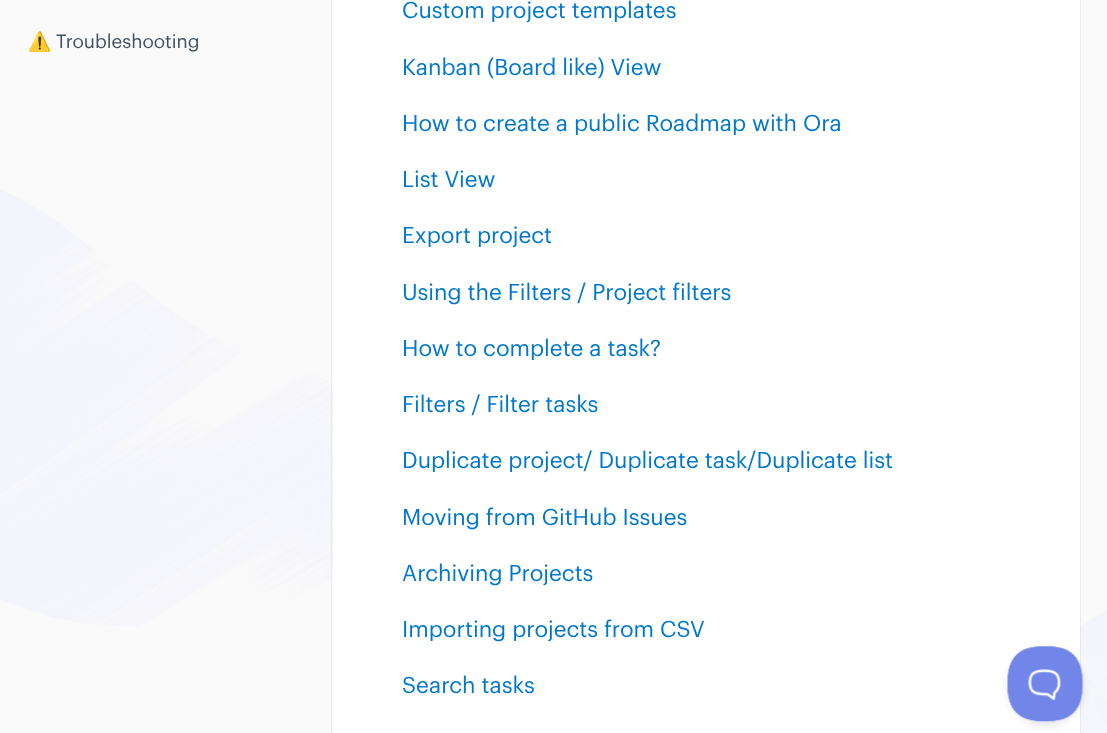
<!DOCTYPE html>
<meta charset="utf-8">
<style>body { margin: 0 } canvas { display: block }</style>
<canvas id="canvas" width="1107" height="733"></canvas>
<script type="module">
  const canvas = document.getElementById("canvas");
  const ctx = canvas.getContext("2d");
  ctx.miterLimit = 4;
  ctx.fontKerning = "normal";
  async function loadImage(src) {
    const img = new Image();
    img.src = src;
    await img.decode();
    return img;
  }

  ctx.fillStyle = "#fafafa";
  ctx.fillRect(0, 0, 1107, 733);
  ctx.drawImage(await loadImage("img1.png"), 0, 190, 1107, 543);
  ctx.font = "18.75px Noto Color Emoji";
  ctx.fillStyle = "#405261";
  ctx.fillText("⚠️", 28, 48);
  ctx.font = "18.75px Graphik";
  ctx.fillText("Troubleshooting", 56, 48);
  ctx.strokeStyle = "rgba(0, 0, 0, 0.05)";
  ctx.strokeRect(331.5, -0.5, 749, 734);
  ctx.fillStyle = "#ffffff";
  ctx.fillRect(333, 0, 747, 733);
  ctx.font = "22.5px Graphik";
  ctx.fillStyle = "#0077cc";
  ctx.fillText("Custom project templates", 402, 18);
  ctx.fillText("Kanban (Board like) View", 402, 75);
  ctx.fillText("How to create a public Roadmap with Ora", 402, 131);
  ctx.fillText("List View", 402, 187);
  ctx.fillText("Export project", 402, 243);
  ctx.fillText("Using the Filters / Project filters", 402, 300);
  ctx.fillText("How to complete a task?", 402, 356);
  ctx.fillText("Filters / Filter tasks", 402, 412);
  ctx.fillText("Duplicate project/ Duplicate task/Duplicate list", 402, 468);
  ctx.fillText("Moving from GitHub Issues", 402, 525);
  ctx.fillText("Archiving Projects", 402, 581);
  ctx.fillText("Importing projects from CSV", 402, 637);
  ctx.fillText("Search tasks", 402, 693);
  ctx.fillStyle = "rgba(0, 0, 0, 0.1)";
  ctx.filter = "blur(4.5px)";
  ctx.beginPath();
  ctx.roundRect(1008, 651, 75, 75, 37.5);
  ctx.fill();
  ctx.filter = "none";
  ctx.drawImage(await loadImage("img2.png"), 1007, 646, 76, 76);
</script>
